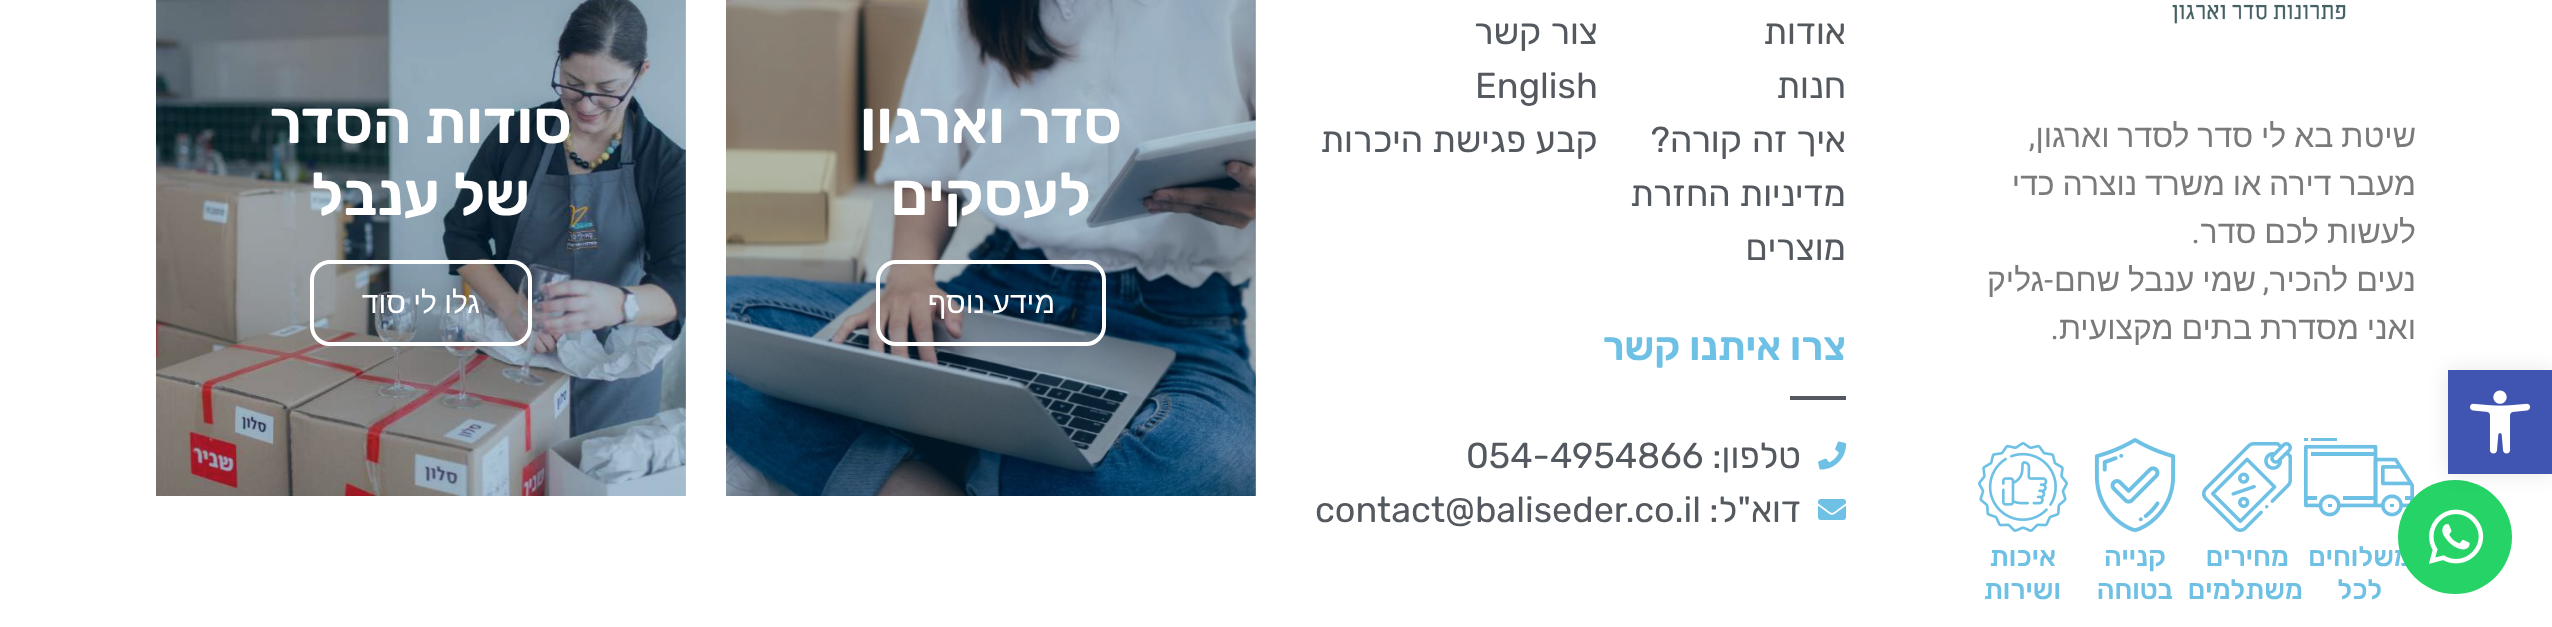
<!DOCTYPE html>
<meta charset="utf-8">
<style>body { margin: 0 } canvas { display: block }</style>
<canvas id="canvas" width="2552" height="627"></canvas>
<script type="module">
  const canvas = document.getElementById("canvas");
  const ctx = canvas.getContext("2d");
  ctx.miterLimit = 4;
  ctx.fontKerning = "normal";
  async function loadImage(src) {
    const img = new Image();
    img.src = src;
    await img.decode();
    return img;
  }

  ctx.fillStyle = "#ffffff";
  ctx.fillRect(0, 0, 2552, 627);
  ctx.drawImage(await loadImage("img4.png"), 2304, 438, 110, 79);
  ctx.direction = "rtl";
  ctx.font = "500 28px Rubik";
  ctx.fillStyle = "#6ec1e4";
  ctx.fillText("משלוחים", 2412, 566);
  ctx.fillStyle = "#26d367";
  ctx.beginPath();
  ctx.arc(2455, 537, 57, 0, Math.PI * 2);
  ctx.fill();
  ctx.fillStyle = "rgba(0, 0, 0, 0.1)";
  ctx.filter = "blur(10px)";
  ctx.beginPath();
  ctx.rect(2448, 370, 104, 104);
  ctx.fill();
  ctx.filter = "none";
  ctx.fillStyle = "#4054b2";
  ctx.fillRect(2448, 370, 104, 104);
  ctx.drawImage(await loadImage("img1.png"), 2470, 390, 61, 64);
  ctx.drawImage(await loadImage("img2.png"), 2428, 509, 56, 55);
  ctx.drawImage(await loadImage("img3.png"), 2172, 4, 174, 20);
  ctx.wordSpacing = "-1px";
  ctx.font = "32px Liberation Sans";
  ctx.fillStyle = "#7a7a7a";
  ctx.fillText("שיטת בא לי סדר לסדר וארגון", 2416, 147);
  ctx.wordSpacing = "0px";
  ctx.font = "32px Roboto";
  ctx.fillText(",", 2035, 147);
  ctx.wordSpacing = "-1px";
  ctx.font = "32px Liberation Sans";
  ctx.fillText("מעבר דירה או משרד נוצרה כדי", 2416, 195);
  ctx.fillText("לעשות לכם סדר", 2416, 243);
  ctx.wordSpacing = "0px";
  ctx.font = "32px Roboto";
  ctx.fillText(".", 2200, 243);
  ctx.wordSpacing = "-1px";
  ctx.font = "32px Liberation Sans";
  ctx.fillText("נעים להכיר", 2416, 291);
  ctx.fillText("שמי ענבל שחם", 2256, 291);
  ctx.wordSpacing = "0px";
  ctx.font = "32px Roboto";
  ctx.fillText("-", 2053, 291);
  ctx.font = "32px Liberation Sans";
  ctx.fillText("גליק", 2044, 291);
  ctx.font = "32px Roboto";
  ctx.fillText(",", 2269, 291);
  ctx.wordSpacing = "-1px";
  ctx.font = "32px Liberation Sans";
  ctx.fillText("ואני מסדרת בתים מקצועית", 2416, 339);
  ctx.wordSpacing = "0px";
  ctx.font = "32px Roboto";
  ctx.fillText(".", 2059, 339);
  ctx.font = "500 28px Rubik";
  ctx.fillStyle = "#6ec1e4";
  ctx.fillText("לכל", 2382, 599);
  ctx.drawImage(await loadImage("img5.png"), 2202, 442, 90, 90);
  ctx.fillText("מחירים", 2289, 566);
  ctx.fillText("משתלמים", 2303, 599);
  ctx.drawImage(await loadImage("img6.png"), 2094, 438, 82, 94);
  ctx.fillText("קנייה", 2166, 566);
  ctx.fillText("בטוחה", 2173, 599);
  ctx.drawImage(await loadImage("img7.png"), 1978, 442, 90, 90);
  ctx.fillText("איכות", 2056, 566);
  ctx.fillText("ושירות", 2061, 599);
  ctx.font = "36px Rubik";
  ctx.fillStyle = "#54595f";
  ctx.fillText("אודות", 1846, 44);
  ctx.fillText("חנות", 1846, 98);
  ctx.wordSpacing = "1px";
  ctx.fillText("איך זה קורה?", 1846, 152);
  ctx.wordSpacing = "0px";
  ctx.fillText("מדיניות החזרת", 1846, 206);
  ctx.fillText("מוצרים", 1846, 260);
  ctx.wordSpacing = "1px";
  ctx.fillText("צור קשר", 1598, 44);
  ctx.wordSpacing = "0px";
  ctx.direction = "ltr";
  ctx.fillText("English", 1475, 98);
  ctx.direction = "rtl";
  ctx.fillText("קבע פגישת היכרות", 1598, 152);
  ctx.font = "600 40px Rubik";
  ctx.fillStyle = "#6ec1e4";
  ctx.fillText("צרו איתנו קשר", 1846, 360);
  ctx.fillStyle = "#54595f";
  ctx.fillRect(1790, 396, 56, 4);
  ctx.drawImage(await loadImage("img8.png"), 1818, 441, 29, 29);
  ctx.font = "36px Rubik";
  ctx.fillText("טלפון:", 1801, 468);
  ctx.direction = "ltr";
  ctx.fillText("054-4954866", 1466, 468);
  ctx.drawImage(await loadImage("img9.png"), 1818, 499, 28, 21);
  ctx.direction = "rtl";
  ctx.fillText("דוא\"ל:", 1801, 522);
  ctx.direction = "ltr";
  ctx.fillText("contact@baliseder.co.il", 1315, 522);
  ctx.drawImage(await loadImage("img10.png"), 726, 0, 530, 496);
  ctx.wordSpacing = "1px";
  ctx.direction = "rtl";
  ctx.font = "600 60px Rubik";
  ctx.fillStyle = "#ffffff";
  ctx.fillText("סדר וארגון", 1122, 143);
  ctx.wordSpacing = "0px";
  ctx.fillText("לעסקים", 1091, 215);
  ctx.beginPath();
  ctx.roundRect(878, 262, 226, 82, 18);
  ctx.strokeStyle = "#ffffff";
  ctx.lineWidth = 4;
  ctx.stroke();
  ctx.wordSpacing = "-1px";
  ctx.font = "30px Liberation Sans";
  ctx.fillText("מידע נוסף", 1055, 313);
  ctx.drawImage(await loadImage("img11.png"), 156, 0, 530, 496);
  ctx.wordSpacing = "0px";
  ctx.font = "600 60px Rubik";
  ctx.fillText("סודות הסדר", 572, 143);
  ctx.wordSpacing = "1px";
  ctx.fillText("של ענבל", 530, 215);
  ctx.beginPath();
  ctx.roundRect(312, 262, 218, 82, 18);
  ctx.stroke();
  ctx.wordSpacing = "-1px";
  ctx.font = "30px Liberation Sans";
  ctx.fillText("גלו לי סוד", 480, 313);
</script>
